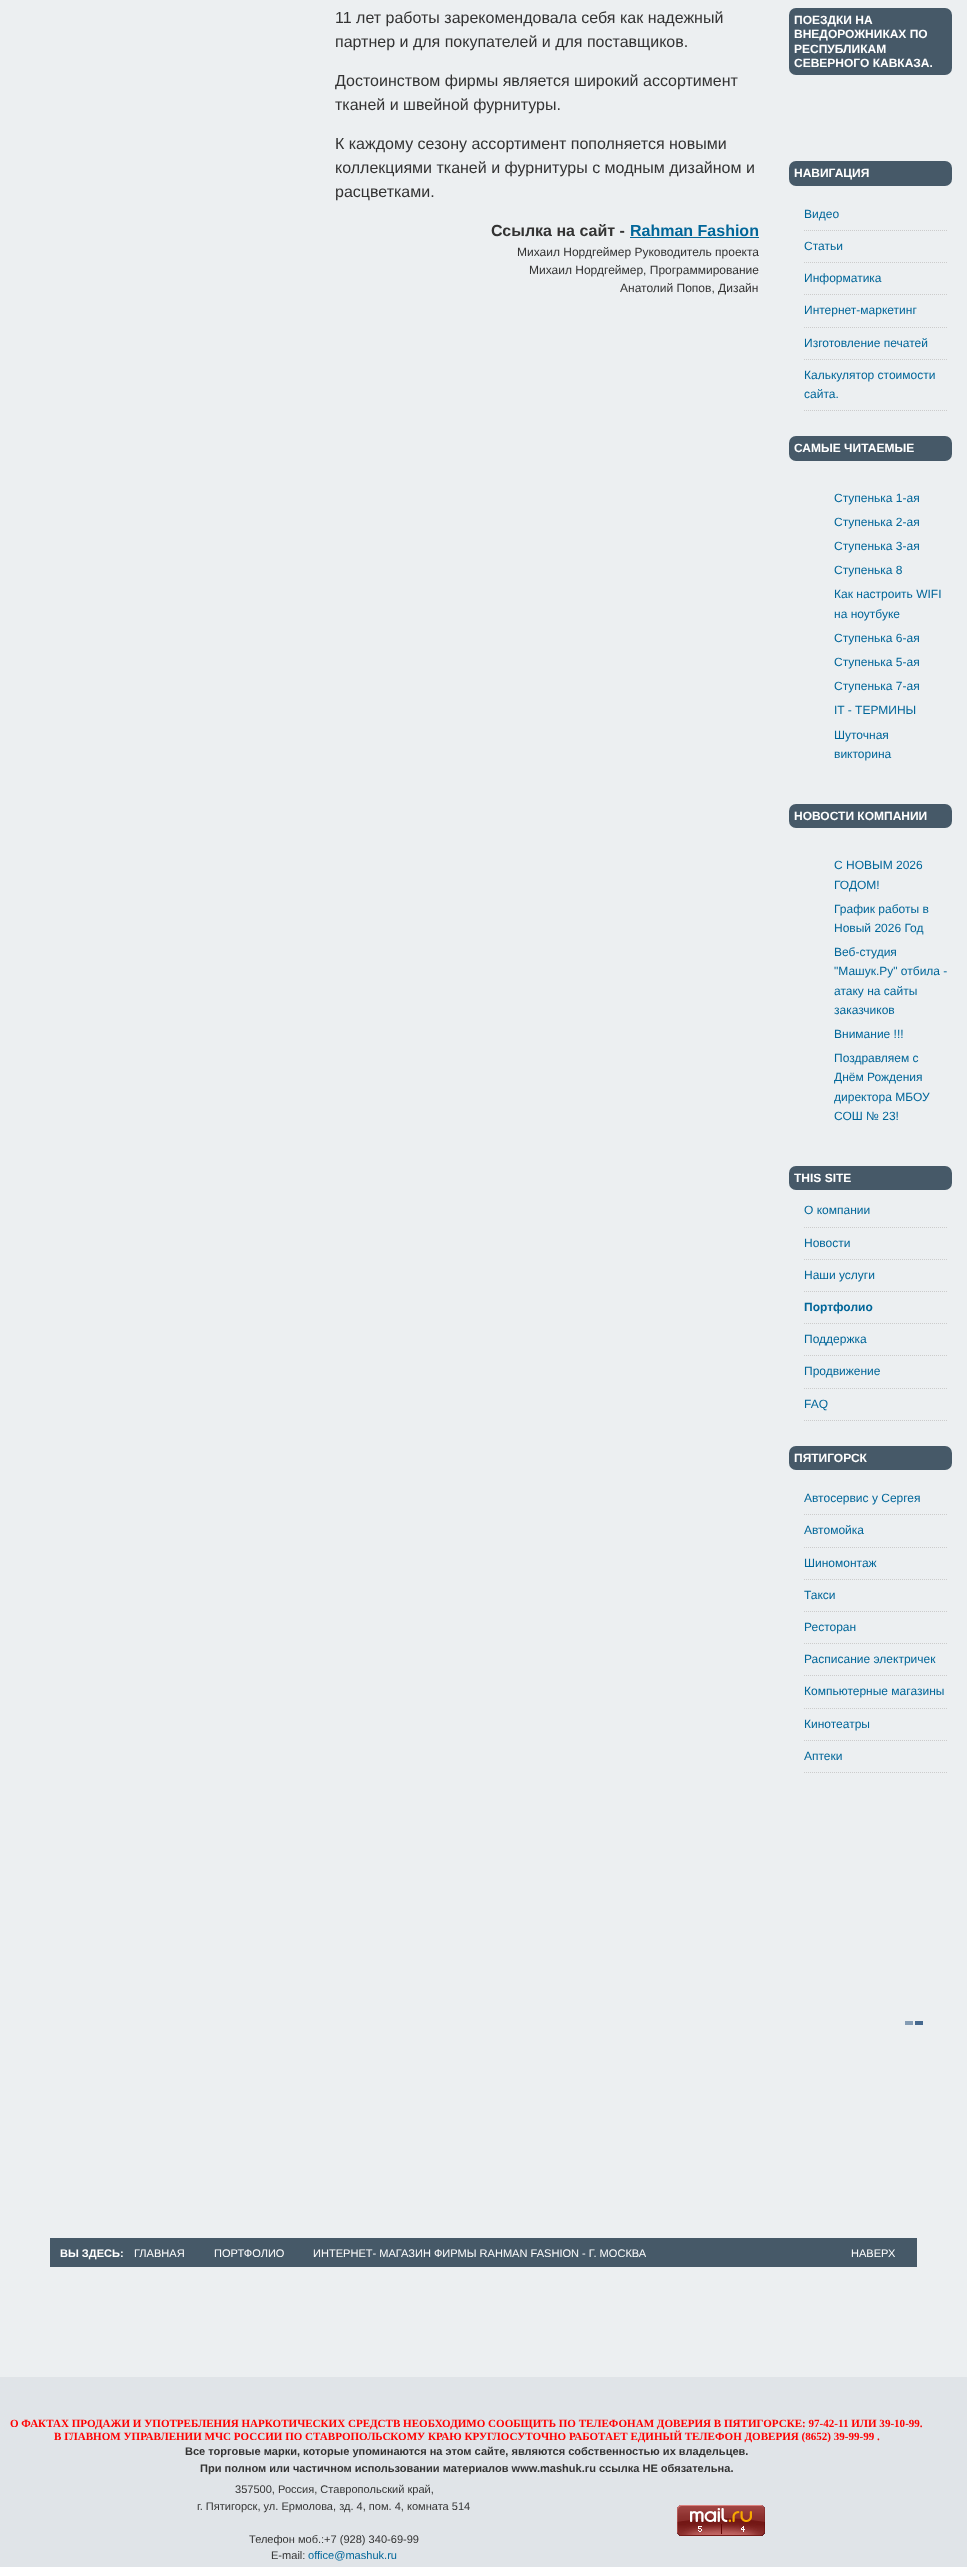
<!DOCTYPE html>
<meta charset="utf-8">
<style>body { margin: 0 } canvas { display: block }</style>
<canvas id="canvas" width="967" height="2567"></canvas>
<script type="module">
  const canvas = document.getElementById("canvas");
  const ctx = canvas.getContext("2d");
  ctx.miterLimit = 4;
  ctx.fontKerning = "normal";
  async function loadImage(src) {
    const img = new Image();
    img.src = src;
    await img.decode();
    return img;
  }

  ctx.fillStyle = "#e0e4e8";
  ctx.fillRect(0, 0, 967, 2567);
  ctx.fillStyle = "#eceff1";
  ctx.fillRect(0, 0, 967, 2377);
  ctx.font = "16px Liberation Sans";
  ctx.fillStyle = "#333333";
  ctx.fillText("11 лет работы зарекомендовала себя как надежный", 335, 23);
  ctx.fillText("партнер и для покупателей и для поставщиков.", 335, 47);
  ctx.fillText("Достоинством фирмы является широкий ассортимент", 335, 86);
  ctx.fillText("тканей и швейной фурнитуры.", 335, 110);
  ctx.fillText("К каждому сезону ассортимент пополняется новыми", 335, 149);
  ctx.fillText("коллекциями тканей и фурнитуры с модным дизайном и", 335, 173);
  ctx.fillText("расцветками.", 335, 197);
  ctx.font = "bold 16px Liberation Sans";
  ctx.fillText("Ссылка на сайт -", 491, 236);
  ctx.fillStyle = "#006699";
  ctx.fillText("Rahman Fashion", 630, 236);
  ctx.fillRect(630, 237, 129, 1);
  ctx.font = "12px Liberation Sans";
  ctx.fillStyle = "#333333";
  ctx.fillText("Михаил Нордгеймер Руководитель проекта", 517, 256);
  ctx.fillText("Михаил Нордгеймер, Программирование", 529, 274);
  ctx.fillText("Анатолий Попов, Дизайн", 620, 292);
  ctx.fillStyle = "#465968";
  ctx.beginPath();
  ctx.roundRect(789, 8, 163, 67, 7);
  ctx.fill();
  ctx.font = "bold 12px Liberation Sans";
  ctx.fillStyle = "#ffffff";
  ctx.fillText("ПОЕЗДКИ НА", 794, 24);
  ctx.fillText("ВНЕДОРОЖНИКАХ ПО", 794, 38);
  ctx.fillText("РЕСПУБЛИКАМ", 794, 53);
  ctx.fillText("СЕВЕРНОГО КАВКАЗА.", 794, 67);
  ctx.fillStyle = "#465968";
  ctx.beginPath();
  ctx.roundRect(789, 161, 163, 25, 7);
  ctx.fill();
  ctx.fillStyle = "#ffffff";
  ctx.fillText("НАВИГАЦИЯ", 794, 177);
  ctx.beginPath();
  ctx.moveTo(804, 230.5);
  ctx.lineTo(947, 230.5);
  ctx.strokeStyle = "#cccccc";
  ctx.setLineDash([1, 1]);
  ctx.stroke();
  ctx.font = "12px Liberation Sans";
  ctx.fillStyle = "#006699";
  ctx.fillText("Видео", 804, 218);
  ctx.beginPath();
  ctx.moveTo(804, 262.5);
  ctx.lineTo(947, 262.5);
  ctx.stroke();
  ctx.fillText("Статьи", 804, 250);
  ctx.beginPath();
  ctx.moveTo(804, 294.5);
  ctx.lineTo(947, 294.5);
  ctx.stroke();
  ctx.fillText("Информатика", 804, 282);
  ctx.beginPath();
  ctx.moveTo(804, 327.5);
  ctx.lineTo(947, 327.5);
  ctx.stroke();
  ctx.fillText("Интернет-маркетинг", 804, 314);
  ctx.beginPath();
  ctx.moveTo(804, 359.5);
  ctx.lineTo(947, 359.5);
  ctx.stroke();
  ctx.fillText("Изготовление печатей", 804, 347);
  ctx.beginPath();
  ctx.moveTo(804, 410.5);
  ctx.lineTo(947, 410.5);
  ctx.stroke();
  ctx.fillText("Калькулятор стоимости", 804, 379);
  ctx.fillText("сайта.", 804, 398);
  ctx.fillStyle = "#465968";
  ctx.beginPath();
  ctx.roundRect(789, 436, 163, 25, 7);
  ctx.fill();
  ctx.font = "bold 12px Liberation Sans";
  ctx.fillStyle = "#ffffff";
  ctx.fillText("САМЫЕ ЧИТАЕМЫЕ", 794, 452);
  ctx.font = "12px Liberation Sans";
  ctx.fillStyle = "#006699";
  ctx.fillText("Ступенька 1-ая", 834, 502);
  ctx.fillText("Ступенька 2-ая", 834, 526);
  ctx.fillText("Ступенька 3-ая", 834, 550);
  ctx.fillText("Ступенька 8", 834, 574);
  ctx.fillText("Как настроить WIFI", 834, 598);
  ctx.fillText("на ноутбуке", 834, 618);
  ctx.fillText("Ступенька 6-ая", 834, 642);
  ctx.fillText("Ступенька 5-ая", 834, 666);
  ctx.fillText("Ступенька 7-ая", 834, 690);
  ctx.fillText("IT - ТЕРМИНЫ", 834, 714);
  ctx.fillText("Шуточная", 834, 739);
  ctx.fillText("викторина", 834, 758);
  ctx.fillStyle = "#465968";
  ctx.beginPath();
  ctx.roundRect(789, 804, 163, 24, 7);
  ctx.fill();
  ctx.font = "bold 12px Liberation Sans";
  ctx.fillStyle = "#ffffff";
  ctx.fillText("НОВОСТИ КОМПАНИИ", 794, 820);
  ctx.font = "12px Liberation Sans";
  ctx.fillStyle = "#006699";
  ctx.fillText("С НОВЫМ 2026", 834, 869);
  ctx.fillText("ГОДОМ!", 834, 889);
  ctx.fillText("График работы в", 834, 913);
  ctx.fillText("Новый 2026 Год", 834, 932);
  ctx.fillText("Веб-студия", 834, 956);
  ctx.fillText("\"Машук.Ру\" отбила -", 834, 975);
  ctx.fillText("атаку на сайты", 834, 995);
  ctx.fillText("заказчиков", 834, 1014);
  ctx.fillText("Внимание !!!", 834, 1038);
  ctx.fillText("Поздравляем с", 834, 1062);
  ctx.fillText("Днём Рождения", 834, 1081);
  ctx.fillText("директора МБОУ", 834, 1101);
  ctx.fillText("СОШ № 23!", 834, 1120);
  ctx.fillStyle = "#465968";
  ctx.beginPath();
  ctx.roundRect(789, 1166, 163, 24, 7);
  ctx.fill();
  ctx.font = "bold 12px Liberation Sans";
  ctx.fillStyle = "#ffffff";
  ctx.fillText("THIS SITE", 794, 1182);
  ctx.beginPath();
  ctx.moveTo(804, 1227.5);
  ctx.lineTo(947, 1227.5);
  ctx.stroke();
  ctx.font = "12px Liberation Sans";
  ctx.fillStyle = "#006699";
  ctx.fillText("О компании", 804, 1214);
  ctx.beginPath();
  ctx.moveTo(804, 1259.5);
  ctx.lineTo(947, 1259.5);
  ctx.stroke();
  ctx.fillText("Новости", 804, 1247);
  ctx.beginPath();
  ctx.moveTo(804, 1291.5);
  ctx.lineTo(947, 1291.5);
  ctx.stroke();
  ctx.fillText("Наши услуги", 804, 1279);
  ctx.beginPath();
  ctx.moveTo(804, 1323.5);
  ctx.lineTo(947, 1323.5);
  ctx.stroke();
  ctx.font = "bold 12px Liberation Sans";
  ctx.fillText("Портфолио", 804, 1311);
  ctx.beginPath();
  ctx.moveTo(804, 1355.5);
  ctx.lineTo(947, 1355.5);
  ctx.stroke();
  ctx.font = "12px Liberation Sans";
  ctx.fillText("Поддержка", 804, 1343);
  ctx.beginPath();
  ctx.moveTo(804, 1388.5);
  ctx.lineTo(947, 1388.5);
  ctx.stroke();
  ctx.fillText("Продвижение", 804, 1375);
  ctx.beginPath();
  ctx.moveTo(804, 1420.5);
  ctx.lineTo(947, 1420.5);
  ctx.stroke();
  ctx.fillText("FAQ", 804, 1408);
  ctx.fillStyle = "#465968";
  ctx.beginPath();
  ctx.roundRect(789, 1446, 163, 24, 7);
  ctx.fill();
  ctx.font = "bold 12px Liberation Sans";
  ctx.fillStyle = "#ffffff";
  ctx.fillText("ПЯТИГОРСК", 794, 1462);
  ctx.beginPath();
  ctx.moveTo(804, 1514.5);
  ctx.lineTo(947, 1514.5);
  ctx.stroke();
  ctx.font = "12px Liberation Sans";
  ctx.fillStyle = "#006699";
  ctx.fillText("Автосервис у Сергея", 804, 1502);
  ctx.beginPath();
  ctx.moveTo(804, 1547.5);
  ctx.lineTo(947, 1547.5);
  ctx.stroke();
  ctx.fillText("Автомойка", 804, 1534);
  ctx.beginPath();
  ctx.moveTo(804, 1579.5);
  ctx.lineTo(947, 1579.5);
  ctx.stroke();
  ctx.fillText("Шиномонтаж", 804, 1567);
  ctx.beginPath();
  ctx.moveTo(804, 1611.5);
  ctx.lineTo(947, 1611.5);
  ctx.stroke();
  ctx.fillText("Такси", 804, 1599);
  ctx.beginPath();
  ctx.moveTo(804, 1643.5);
  ctx.lineTo(947, 1643.5);
  ctx.stroke();
  ctx.fillText("Ресторан", 804, 1631);
  ctx.beginPath();
  ctx.moveTo(804, 1675.5);
  ctx.lineTo(947, 1675.5);
  ctx.stroke();
  ctx.fillText("Расписание электричек", 804, 1663);
  ctx.beginPath();
  ctx.moveTo(804, 1708.5);
  ctx.lineTo(947, 1708.5);
  ctx.stroke();
  ctx.fillText("Компьютерные магазины", 804, 1695);
  ctx.beginPath();
  ctx.moveTo(804, 1740.5);
  ctx.lineTo(947, 1740.5);
  ctx.stroke();
  ctx.fillText("Кинотеатры", 804, 1728);
  ctx.beginPath();
  ctx.moveTo(804, 1772.5);
  ctx.lineTo(947, 1772.5);
  ctx.stroke();
  ctx.fillText("Аптеки", 804, 1760);
  ctx.drawImage(await loadImage("img1.png"), 905, 2021, 18, 4);
  ctx.fillStyle = "#465968";
  ctx.fillRect(50, 2238, 867, 29);
  ctx.font = "bold 11.05px Liberation Sans";
  ctx.fillStyle = "#ffffff";
  ctx.fillText("ВЫ ЗДЕСЬ:", 60, 2257);
  ctx.font = "11.05px Liberation Sans";
  ctx.fillText("ГЛАВНАЯ", 134, 2257);
  ctx.fillText("ПОРТФОЛИО", 214, 2257);
  ctx.fillText("ИНТЕРНЕТ- МАГАЗИН ФИРМЫ RAHMAN FASHION - Г. МОСКВА", 313, 2257);
  ctx.fillText("НАВЕРХ", 851, 2257);
  ctx.font = "bold 11.05px Liberation Serif";
  ctx.fillStyle = "#ff0000";
  ctx.fillText("О ФАКТАХ ПРОДАЖИ И УПОТРЕБЛЕНИЯ НАРКОТИЧЕСКИХ СРЕДСТВ НЕОБХОДИМО СООБЩИТЬ ПО ТЕЛЕФОНАМ ДОВЕРИЯ В ПЯТИГОРСКЕ: 97-42-11 ИЛИ 39-10-99.", 10, 2427);
  ctx.fillText("В ГЛАВНОМ УПРАВЛЕНИИ МЧС РОССИИ ПО СТАВРОПОЛЬСКОМУ КРАЮ КРУГЛОСУТОЧНО РАБОТАЕТ ЕДИНЫЙ ТЕЛЕФОН ДОВЕРИЯ (8652) 39-99-99 .", 54, 2440);
  ctx.font = "bold 11.05px Liberation Sans";
  ctx.fillStyle = "#333333";
  ctx.fillText("Все торговые марки, которые упоминаются на этом сайте, являются собственностью их владельцев.", 185, 2455);
  ctx.fillText("При полном или частичном использовании материалов www.mashuk.ru ссылка НЕ обязательна.", 200, 2472);
  ctx.font = "11.05px Liberation Sans";
  ctx.fillText("357500, Россия, Ставропольский край,", 235, 2493);
  ctx.fillText("г. Пятигорск, ул. Ермолова, зд. 4, пом. 4, комната 514", 197, 2510);
  ctx.fillText("Телефон моб.:+7 (928) 340-69-99", 249, 2543);
  ctx.fillText("E-mail:", 271, 2559);
  ctx.fillStyle = "#006699";
  ctx.fillText("office@mashuk.ru", 308, 2559);
  ctx.drawImage(await loadImage("img2.png"), 677, 2505, 88, 31);
</script>
